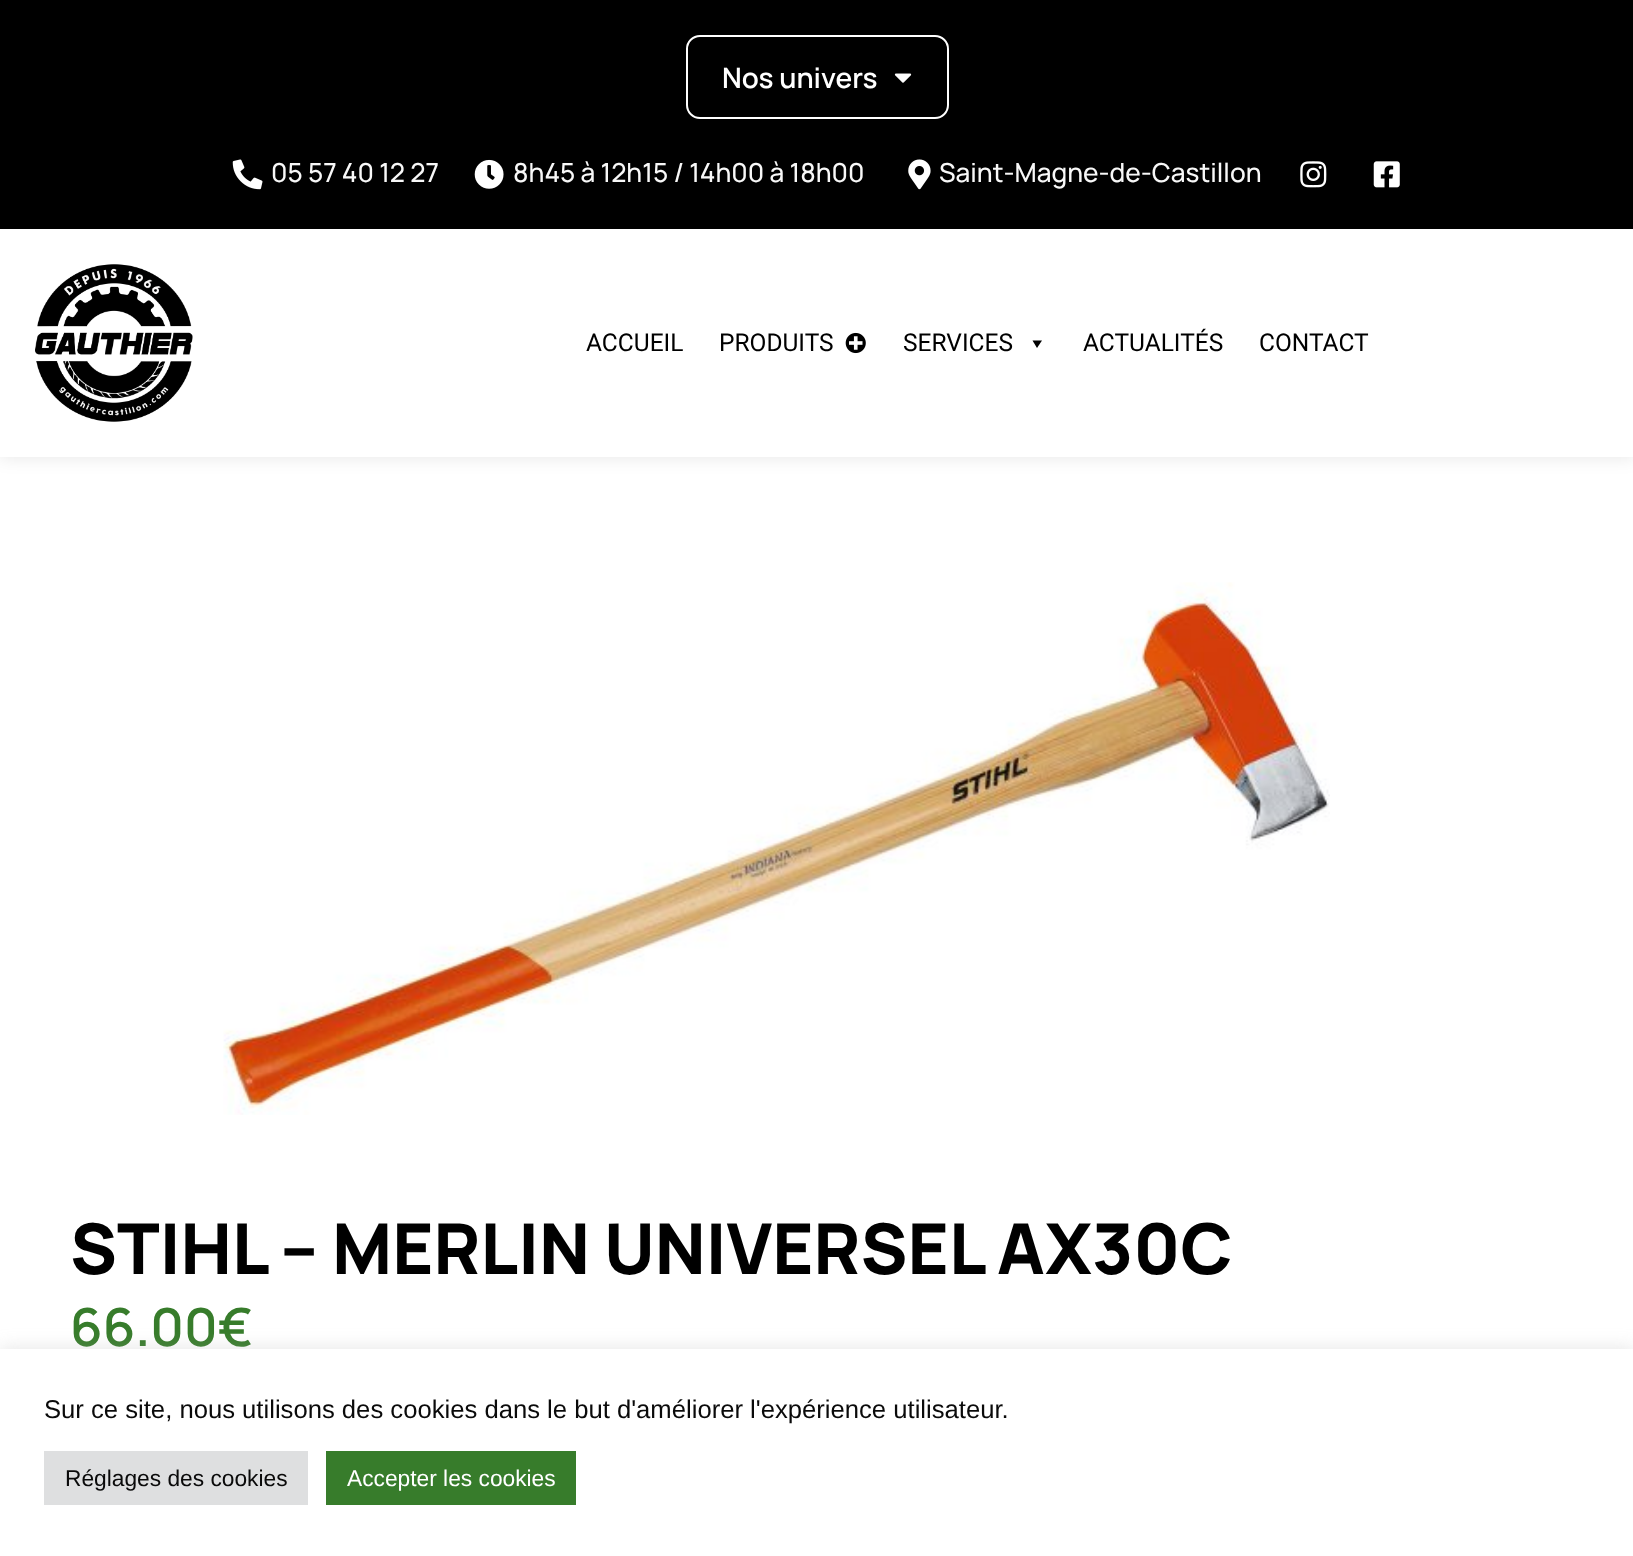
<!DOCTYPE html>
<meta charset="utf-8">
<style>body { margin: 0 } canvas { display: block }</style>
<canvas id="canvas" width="1633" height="1556"></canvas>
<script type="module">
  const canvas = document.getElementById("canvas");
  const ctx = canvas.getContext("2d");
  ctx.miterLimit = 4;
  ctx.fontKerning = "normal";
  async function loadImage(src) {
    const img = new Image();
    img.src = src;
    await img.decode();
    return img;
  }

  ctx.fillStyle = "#ffffff";
  ctx.fillRect(0, 0, 1633, 1556);
  ctx.fillStyle = "#000000";
  ctx.fillRect(0, 0, 1633, 229);
  ctx.beginPath();
  ctx.roundRect(687, 36, 261, 82, 13);
  ctx.strokeStyle = "#ffffff";
  ctx.lineWidth = 2;
  ctx.stroke();
  ctx.font = "600 28px Manrope";
  ctx.fillStyle = "#ffffff";
  ctx.fillText("Nos univers", 722, 88);
  ctx.drawImage(await loadImage("img1.png"), 894, 73, 18, 10);
  ctx.drawImage(await loadImage("img2.png"), 232, 159, 31, 31);
  ctx.font = "500 26.25px Manrope";
  ctx.fillStyle = "#f8f8f8";
  ctx.fillText("05 57 40 12 27", 271, 182);
  ctx.drawImage(await loadImage("img3.png"), 474, 159, 30, 30);
  ctx.fillText("8h45 à 12h15 / 14h00 à 18h00", 513, 182);
  ctx.drawImage(await loadImage("img4.png"), 908, 159, 23, 31);
  ctx.fillText("Saint-Magne-de-Castillon", 939, 182);
  ctx.drawImage(await loadImage("img5.png"), 1300, 161, 27, 27);
  ctx.drawImage(await loadImage("img6.png"), 1373, 161, 27, 27);
  ctx.save();
  ctx.beginPath();
  ctx.moveTo(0, 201);
  ctx.lineTo(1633, 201);
  ctx.lineTo(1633, 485);
  ctx.lineTo(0, 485);
  ctx.closePath();
  ctx.moveTo(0, 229);
  ctx.lineTo(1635, 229);
  ctx.lineTo(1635, 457);
  ctx.lineTo(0, 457);
  ctx.closePath();
  ctx.clip("evenodd");
  ctx.fillStyle = "rgba(0, 0, 0, 0.1)";
  ctx.filter = "blur(9px)";
  ctx.beginPath();
  ctx.rect(0, 229, 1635, 228);
  ctx.fill();
  ctx.filter = "none";
  ctx.restore();
  ctx.drawImage(await loadImage("img7.png"), 35, 264, 158, 158);
  ctx.font = "24.5px Roboto";
  ctx.fillStyle = "#000000";
  ctx.fillText("ACCUEIL", 586, 351);
  ctx.fillText("PRODUITS", 719, 351);
  ctx.drawImage(await loadImage("img8.png"), 845, 332, 21, 22);
  ctx.fillText("SERVICES", 903, 351);
  ctx.beginPath();
  ctx.moveTo(1042, 340.5);
  ctx.lineTo(1037, 348);
  ctx.lineTo(1032.5, 340.5);
  ctx.closePath();
  ctx.fill();
  ctx.fillText("ACTUALITÉS", 1083, 351);
  ctx.fillText("CONTACT", 1259, 351);
  ctx.drawImage(await loadImage("img9.png"), 223, 582, 1107, 533);
  ctx.font = "800 70px Manrope";
  ctx.fillText("STIHL – MERLIN UNIVERSEL AX30C", 70, 1274);
  ctx.font = "600 52.5px Manrope";
  ctx.fillStyle = "#377c2b";
  ctx.fillText("66.00€", 70, 1346);
  ctx.fillStyle = "rgba(172, 171, 171, 0.3)";
  ctx.filter = "blur(9px)";
  ctx.beginPath();
  ctx.rect(0, 1348, 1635, 208);
  ctx.fill();
  ctx.filter = "none";
  ctx.fillStyle = "#ffffff";
  ctx.fillRect(0, 1349, 1633, 207);
  ctx.font = "25.65px Liberation Sans";
  ctx.fillStyle = "#0a0a0a";
  ctx.fillText("Sur ce site, nous utilisons des cookies dans le but d'améliorer l'expérience utilisateur.", 44, 1418);
  ctx.fillStyle = "#dedfe0";
  ctx.fillRect(44, 1451, 264, 54);
  ctx.font = "22.75px Liberation Sans";
  ctx.fillStyle = "#0a0a0a";
  ctx.fillText("Réglages des cookies", 65, 1486);
  ctx.fillStyle = "#377c2b";
  ctx.fillRect(326, 1451, 250, 54);
  ctx.fillStyle = "#ffffff";
  ctx.fillText("Accepter les cookies", 347, 1486);
</script>
